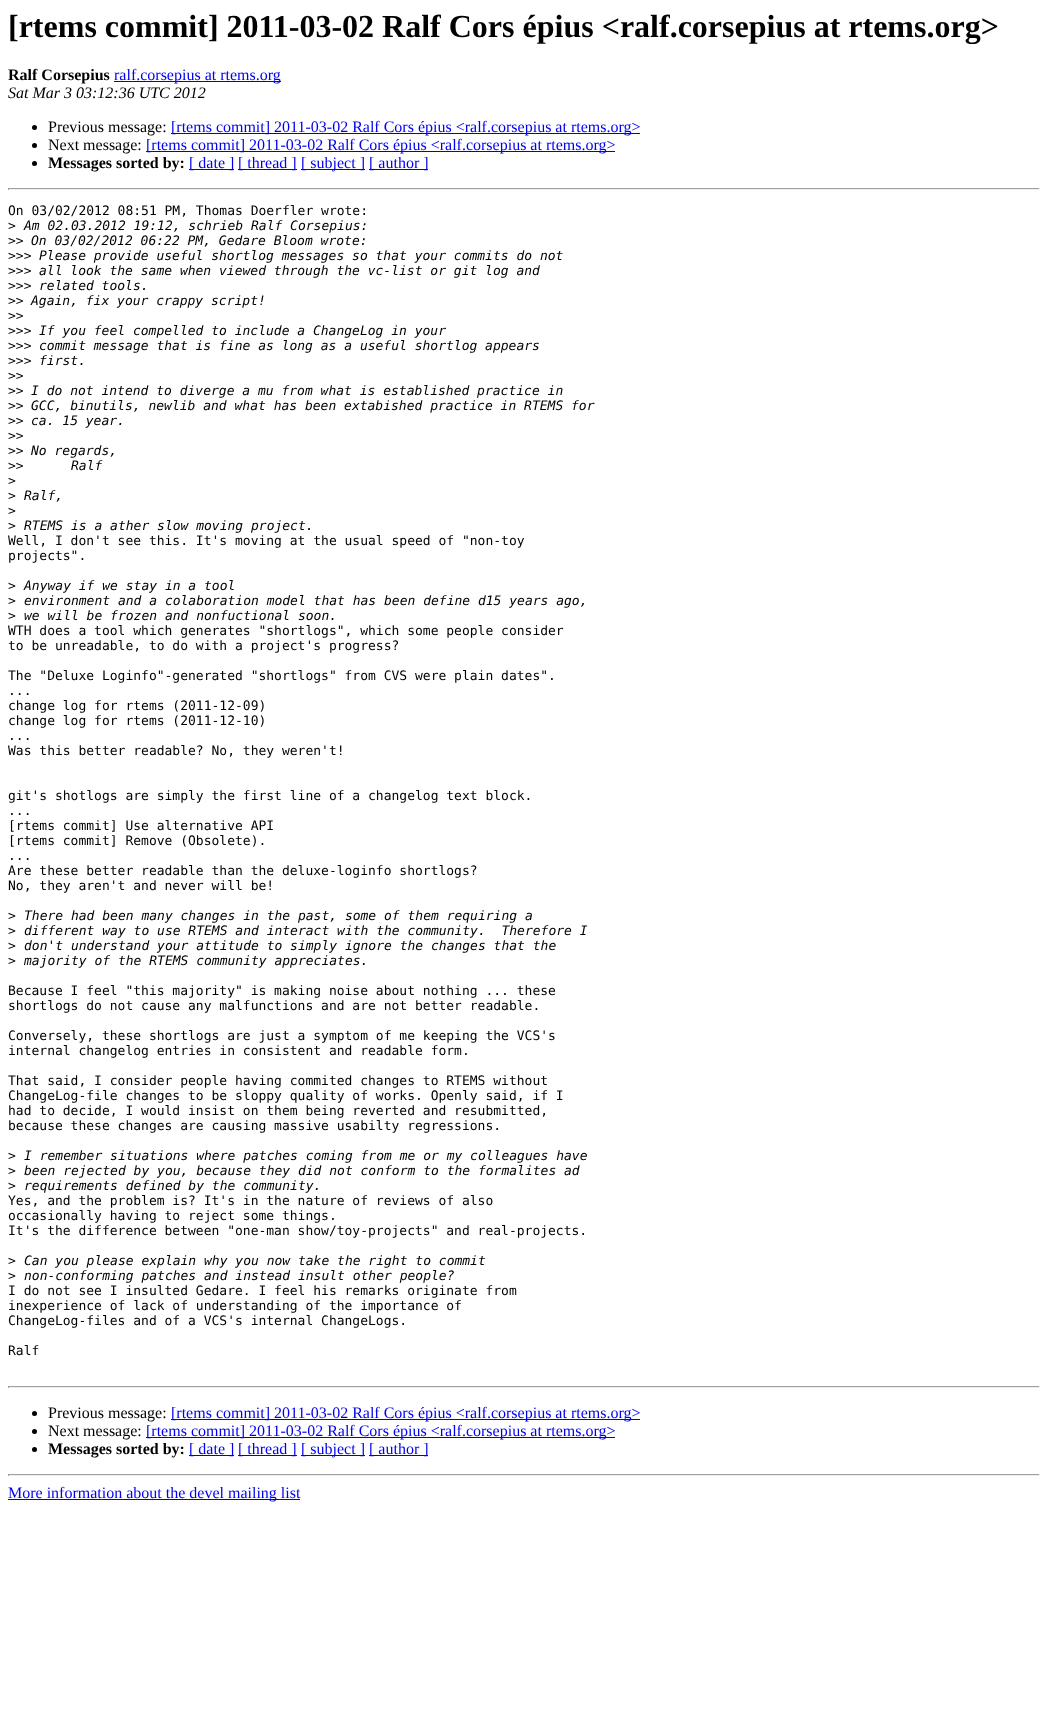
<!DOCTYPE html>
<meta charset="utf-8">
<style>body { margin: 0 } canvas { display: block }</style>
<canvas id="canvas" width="1048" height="1714"></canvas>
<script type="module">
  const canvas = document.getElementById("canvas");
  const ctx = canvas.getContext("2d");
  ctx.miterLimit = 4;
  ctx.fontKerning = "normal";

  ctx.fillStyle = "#ffffff";
  ctx.fillRect(0, 0, 1048, 1714);
  ctx.font = "bold 32px Liberation Serif";
  ctx.fillStyle = "#000000";
  ctx.fillText("[rtems commit] 2011-03-02 Ralf Cors épius <ralf.corsepius at rtems.org>", 8, 37);
  ctx.font = "bold 16px Liberation Serif";
  ctx.fillText("Ralf Corsepius", 8, 80);
  ctx.fillStyle = "#0000ee";
  ctx.fillRect(114, 81, 167, 1);
  ctx.font = "16px Liberation Serif";
  ctx.fillText("ralf.corsepius at rtems.org", 114, 80);
  ctx.font = "italic 16px Liberation Serif";
  ctx.fillStyle = "#000000";
  ctx.fillText("Sat Mar 3 03:12:36 UTC 2012", 8, 98);
  ctx.beginPath();
  ctx.arc(34.5, 127.5, 2.5, 0, Math.PI * 2);
  ctx.fill();
  ctx.font = "16px Liberation Serif";
  ctx.fillText("Previous message:", 48, 132);
  ctx.fillStyle = "#0000ee";
  ctx.fillRect(171, 133, 469, 1);
  ctx.fillText("[rtems commit] 2011-03-02 Ralf Cors épius <ralf.corsepius at rtems.org>", 171, 132);
  ctx.fillStyle = "#000000";
  ctx.beginPath();
  ctx.arc(34.5, 145.5, 2.5, 0, Math.PI * 2);
  ctx.fill();
  ctx.fillText("Next message:", 48, 150);
  ctx.fillStyle = "#0000ee";
  ctx.fillRect(146, 151, 469, 1);
  ctx.fillText("[rtems commit] 2011-03-02 Ralf Cors épius <ralf.corsepius at rtems.org>", 146, 150);
  ctx.fillStyle = "#000000";
  ctx.beginPath();
  ctx.arc(34.5, 163.5, 2.5, 0, Math.PI * 2);
  ctx.fill();
  ctx.font = "bold 16px Liberation Serif";
  ctx.fillText("Messages sorted by:", 48, 168);
  ctx.fillStyle = "#0000ee";
  ctx.fillRect(189, 169, 45, 1);
  ctx.font = "16px Liberation Serif";
  ctx.fillText("[ date ]", 189, 168);
  ctx.fillRect(238, 169, 59, 1);
  ctx.fillText("[ thread ]", 238, 168);
  ctx.fillRect(301, 169, 64, 1);
  ctx.fillText("[ subject ]", 301, 168);
  ctx.fillRect(369, 169, 59, 1);
  ctx.fillText("[ author ]", 369, 168);
  ctx.fillStyle = "#9f9f9f";
  ctx.fillRect(8, 188, 1032, 1);
  ctx.fillStyle = "#eeeeee";
  ctx.fillRect(1039, 188, 1, 2);
  ctx.fillRect(8, 189, 1032, 1);
  ctx.fillStyle = "#9f9f9f";
  ctx.fillRect(8, 188, 1, 2);
  ctx.font = "13px DejaVu Sans Mono";
  ctx.fillStyle = "#000000";
  ctx.fillText("On 03/02/2012 08:51 PM, Thomas Doerfler wrote:", 8, 215);
  ctx.fillText(">", 8, 230);
  ctx.font = "italic 13px DejaVu Sans Mono";
  ctx.fillText("Am 02.03.2012 19:12, schrieb Ralf Corsepius:", 24, 230);
  ctx.font = "13px DejaVu Sans Mono";
  ctx.fillText(">>", 8, 245);
  ctx.font = "italic 13px DejaVu Sans Mono";
  ctx.fillText("On 03/02/2012 06:22 PM, Gedare Bloom wrote:", 31, 245);
  ctx.font = "13px DejaVu Sans Mono";
  ctx.fillText(">>>", 8, 260);
  ctx.font = "italic 13px DejaVu Sans Mono";
  ctx.fillText("Please provide useful shortlog messages so that your commits do not", 39, 260);
  ctx.font = "13px DejaVu Sans Mono";
  ctx.fillText(">>>", 8, 275);
  ctx.font = "italic 13px DejaVu Sans Mono";
  ctx.fillText("all look the same when viewed through the vc-list or git log and", 39, 275);
  ctx.font = "13px DejaVu Sans Mono";
  ctx.fillText(">>>", 8, 290);
  ctx.font = "italic 13px DejaVu Sans Mono";
  ctx.fillText("related tools.", 39, 290);
  ctx.font = "13px DejaVu Sans Mono";
  ctx.fillText(">>", 8, 305);
  ctx.font = "italic 13px DejaVu Sans Mono";
  ctx.fillText("Again, fix your crappy script!", 31, 305);
  ctx.font = "13px DejaVu Sans Mono";
  ctx.fillText(">>", 8, 320);
  ctx.fillText(">>>", 8, 335);
  ctx.font = "italic 13px DejaVu Sans Mono";
  ctx.fillText("If you feel compelled to include a ChangeLog in your", 39, 335);
  ctx.font = "13px DejaVu Sans Mono";
  ctx.fillText(">>>", 8, 350);
  ctx.font = "italic 13px DejaVu Sans Mono";
  ctx.fillText("commit message that is fine as long as a useful shortlog appears", 39, 350);
  ctx.font = "13px DejaVu Sans Mono";
  ctx.fillText(">>>", 8, 365);
  ctx.font = "italic 13px DejaVu Sans Mono";
  ctx.fillText("first.", 39, 365);
  ctx.font = "13px DejaVu Sans Mono";
  ctx.fillText(">>", 8, 380);
  ctx.fillText(">>", 8, 395);
  ctx.font = "italic 13px DejaVu Sans Mono";
  ctx.fillText("I do not intend to diverge a mu from what is established practice in", 31, 395);
  ctx.font = "13px DejaVu Sans Mono";
  ctx.fillText(">>", 8, 410);
  ctx.font = "italic 13px DejaVu Sans Mono";
  ctx.fillText("GCC, binutils, newlib and what has been extabished practice in RTEMS for", 31, 410);
  ctx.font = "13px DejaVu Sans Mono";
  ctx.fillText(">>", 8, 425);
  ctx.font = "italic 13px DejaVu Sans Mono";
  ctx.fillText("ca. 15 year.", 31, 425);
  ctx.font = "13px DejaVu Sans Mono";
  ctx.fillText(">>", 8, 440);
  ctx.fillText(">>", 8, 455);
  ctx.font = "italic 13px DejaVu Sans Mono";
  ctx.fillText("No regards,", 31, 455);
  ctx.font = "13px DejaVu Sans Mono";
  ctx.fillText(">>", 8, 470);
  ctx.font = "italic 13px DejaVu Sans Mono";
  ctx.fillText("Ralf", 71, 470);
  ctx.font = "13px DejaVu Sans Mono";
  ctx.fillText(">", 8, 485);
  ctx.fillText(">", 8, 500);
  ctx.font = "italic 13px DejaVu Sans Mono";
  ctx.fillText("Ralf,", 24, 500);
  ctx.font = "13px DejaVu Sans Mono";
  ctx.fillText(">", 8, 515);
  ctx.fillText(">", 8, 530);
  ctx.font = "italic 13px DejaVu Sans Mono";
  ctx.fillText("RTEMS is a ather slow moving project.", 24, 530);
  ctx.font = "13px DejaVu Sans Mono";
  ctx.fillText("Well, I don't see this. It's moving at the usual speed of \"non-toy", 8, 545);
  ctx.fillText("projects\".", 8, 560);
  ctx.fillText(">", 8, 590);
  ctx.font = "italic 13px DejaVu Sans Mono";
  ctx.fillText("Anyway if we stay in a tool", 24, 590);
  ctx.font = "13px DejaVu Sans Mono";
  ctx.fillText(">", 8, 605);
  ctx.font = "italic 13px DejaVu Sans Mono";
  ctx.fillText("environment and a colaboration model that has been define d15 years ago,", 24, 605);
  ctx.font = "13px DejaVu Sans Mono";
  ctx.fillText(">", 8, 620);
  ctx.font = "italic 13px DejaVu Sans Mono";
  ctx.fillText("we will be frozen and nonfuctional soon.", 24, 620);
  ctx.font = "13px DejaVu Sans Mono";
  ctx.fillText("WTH does a tool which generates \"shortlogs\", which some people consider", 8, 635);
  ctx.fillText("to be unreadable, to do with a project's progress?", 8, 650);
  ctx.fillText("The \"Deluxe Loginfo\"-generated \"shortlogs\" from CVS were plain dates\".", 8, 680);
  ctx.fillText("...", 8, 695);
  ctx.fillText("change log for rtems (2011-12-09)", 8, 710);
  ctx.fillText("change log for rtems (2011-12-10)", 8, 725);
  ctx.fillText("...", 8, 740);
  ctx.fillText("Was this better readable? No, they weren't!", 8, 755);
  ctx.fillText("git's shotlogs are simply the first line of a changelog text block.", 8, 800);
  ctx.fillText("...", 8, 815);
  ctx.fillText("[rtems commit] Use alternative API", 8, 830);
  ctx.fillText("[rtems commit] Remove (Obsolete).", 8, 845);
  ctx.fillText("...", 8, 860);
  ctx.fillText("Are these better readable than the deluxe-loginfo shortlogs?", 8, 875);
  ctx.fillText("No, they aren't and never will be!", 8, 890);
  ctx.fillText(">", 8, 920);
  ctx.font = "italic 13px DejaVu Sans Mono";
  ctx.fillText("There had been many changes in the past, some of them requiring a", 24, 920);
  ctx.font = "13px DejaVu Sans Mono";
  ctx.fillText(">", 8, 935);
  ctx.font = "italic 13px DejaVu Sans Mono";
  ctx.fillText("different way to use RTEMS and interact with the community.  Therefore I", 24, 935);
  ctx.font = "13px DejaVu Sans Mono";
  ctx.fillText(">", 8, 950);
  ctx.font = "italic 13px DejaVu Sans Mono";
  ctx.fillText("don't understand your attitude to simply ignore the changes that the", 24, 950);
  ctx.font = "13px DejaVu Sans Mono";
  ctx.fillText(">", 8, 965);
  ctx.font = "italic 13px DejaVu Sans Mono";
  ctx.fillText("majority of the RTEMS community appreciates.", 24, 965);
  ctx.font = "13px DejaVu Sans Mono";
  ctx.fillText("Because I feel \"this majority\" is making noise about nothing ... these", 8, 995);
  ctx.fillText("shortlogs do not cause any malfunctions and are not better readable.", 8, 1010);
  ctx.fillText("Conversely, these shortlogs are just a symptom of me keeping the VCS's", 8, 1040);
  ctx.fillText("internal changelog entries in consistent and readable form.", 8, 1055);
  ctx.fillText("That said, I consider people having commited changes to RTEMS without", 8, 1085);
  ctx.fillText("ChangeLog-file changes to be sloppy quality of works. Openly said, if I", 8, 1100);
  ctx.fillText("had to decide, I would insist on them being reverted and resubmitted,", 8, 1115);
  ctx.fillText("because these changes are causing massive usabilty regressions.", 8, 1130);
  ctx.fillText(">", 8, 1160);
  ctx.font = "italic 13px DejaVu Sans Mono";
  ctx.fillText("I remember situations where patches coming from me or my colleagues have", 24, 1160);
  ctx.font = "13px DejaVu Sans Mono";
  ctx.fillText(">", 8, 1175);
  ctx.font = "italic 13px DejaVu Sans Mono";
  ctx.fillText("been rejected by you, because they did not conform to the formalites ad", 24, 1175);
  ctx.font = "13px DejaVu Sans Mono";
  ctx.fillText(">", 8, 1190);
  ctx.font = "italic 13px DejaVu Sans Mono";
  ctx.fillText("requirements defined by the community.", 24, 1190);
  ctx.font = "13px DejaVu Sans Mono";
  ctx.fillText("Yes, and the problem is? It's in the nature of reviews of also", 8, 1205);
  ctx.fillText("occasionally having to reject some things.", 8, 1220);
  ctx.fillText("It's the difference between \"one-man show/toy-projects\" and real-projects.", 8, 1235);
  ctx.fillText(">", 8, 1265);
  ctx.font = "italic 13px DejaVu Sans Mono";
  ctx.fillText("Can you please explain why you now take the right to commit", 24, 1265);
  ctx.font = "13px DejaVu Sans Mono";
  ctx.fillText(">", 8, 1280);
  ctx.font = "italic 13px DejaVu Sans Mono";
  ctx.fillText("non-conforming patches and instead insult other people?", 24, 1280);
  ctx.font = "13px DejaVu Sans Mono";
  ctx.fillText("I do not see I insulted Gedare. I feel his remarks originate from", 8, 1295);
  ctx.fillText("inexperience of lack of understanding of the importance of", 8, 1310);
  ctx.fillText("ChangeLog-files and of a VCS's internal ChangeLogs.", 8, 1325);
  ctx.fillText("Ralf", 8, 1355);
  ctx.fillStyle = "#9f9f9f";
  ctx.fillRect(8, 1386, 1032, 1);
  ctx.fillStyle = "#eeeeee";
  ctx.fillRect(1039, 1386, 1, 2);
  ctx.fillRect(8, 1387, 1032, 1);
  ctx.fillStyle = "#9f9f9f";
  ctx.fillRect(8, 1386, 1, 2);
  ctx.fillStyle = "#000000";
  ctx.beginPath();
  ctx.arc(34.5, 1413.5, 2.5, 0, Math.PI * 2);
  ctx.fill();
  ctx.font = "16px Liberation Serif";
  ctx.fillText("Previous message:", 48, 1418);
  ctx.fillStyle = "#0000ee";
  ctx.fillRect(171, 1419, 469, 1);
  ctx.fillText("[rtems commit] 2011-03-02 Ralf Cors épius <ralf.corsepius at rtems.org>", 171, 1418);
  ctx.fillStyle = "#000000";
  ctx.beginPath();
  ctx.arc(34.5, 1431.5, 2.5, 0, Math.PI * 2);
  ctx.fill();
  ctx.fillText("Next message:", 48, 1436);
  ctx.fillStyle = "#0000ee";
  ctx.fillRect(146, 1437, 469, 1);
  ctx.fillText("[rtems commit] 2011-03-02 Ralf Cors épius <ralf.corsepius at rtems.org>", 146, 1436);
  ctx.fillStyle = "#000000";
  ctx.beginPath();
  ctx.arc(34.5, 1449.5, 2.5, 0, Math.PI * 2);
  ctx.fill();
  ctx.font = "bold 16px Liberation Serif";
  ctx.fillText("Messages sorted by:", 48, 1454);
  ctx.fillStyle = "#0000ee";
  ctx.fillRect(189, 1455, 45, 1);
  ctx.font = "16px Liberation Serif";
  ctx.fillText("[ date ]", 189, 1454);
  ctx.fillRect(238, 1455, 59, 1);
  ctx.fillText("[ thread ]", 238, 1454);
  ctx.fillRect(301, 1455, 64, 1);
  ctx.fillText("[ subject ]", 301, 1454);
  ctx.fillRect(369, 1455, 59, 1);
  ctx.fillText("[ author ]", 369, 1454);
  ctx.fillStyle = "#9f9f9f";
  ctx.fillRect(8, 1474, 1032, 1);
  ctx.fillStyle = "#eeeeee";
  ctx.fillRect(1039, 1474, 1, 2);
  ctx.fillRect(8, 1475, 1032, 1);
  ctx.fillStyle = "#9f9f9f";
  ctx.fillRect(8, 1474, 1, 2);
  ctx.fillStyle = "#0000ee";
  ctx.fillRect(8, 1499, 292, 1);
  ctx.fillText("More information about the devel mailing list", 8, 1498);
</script>
